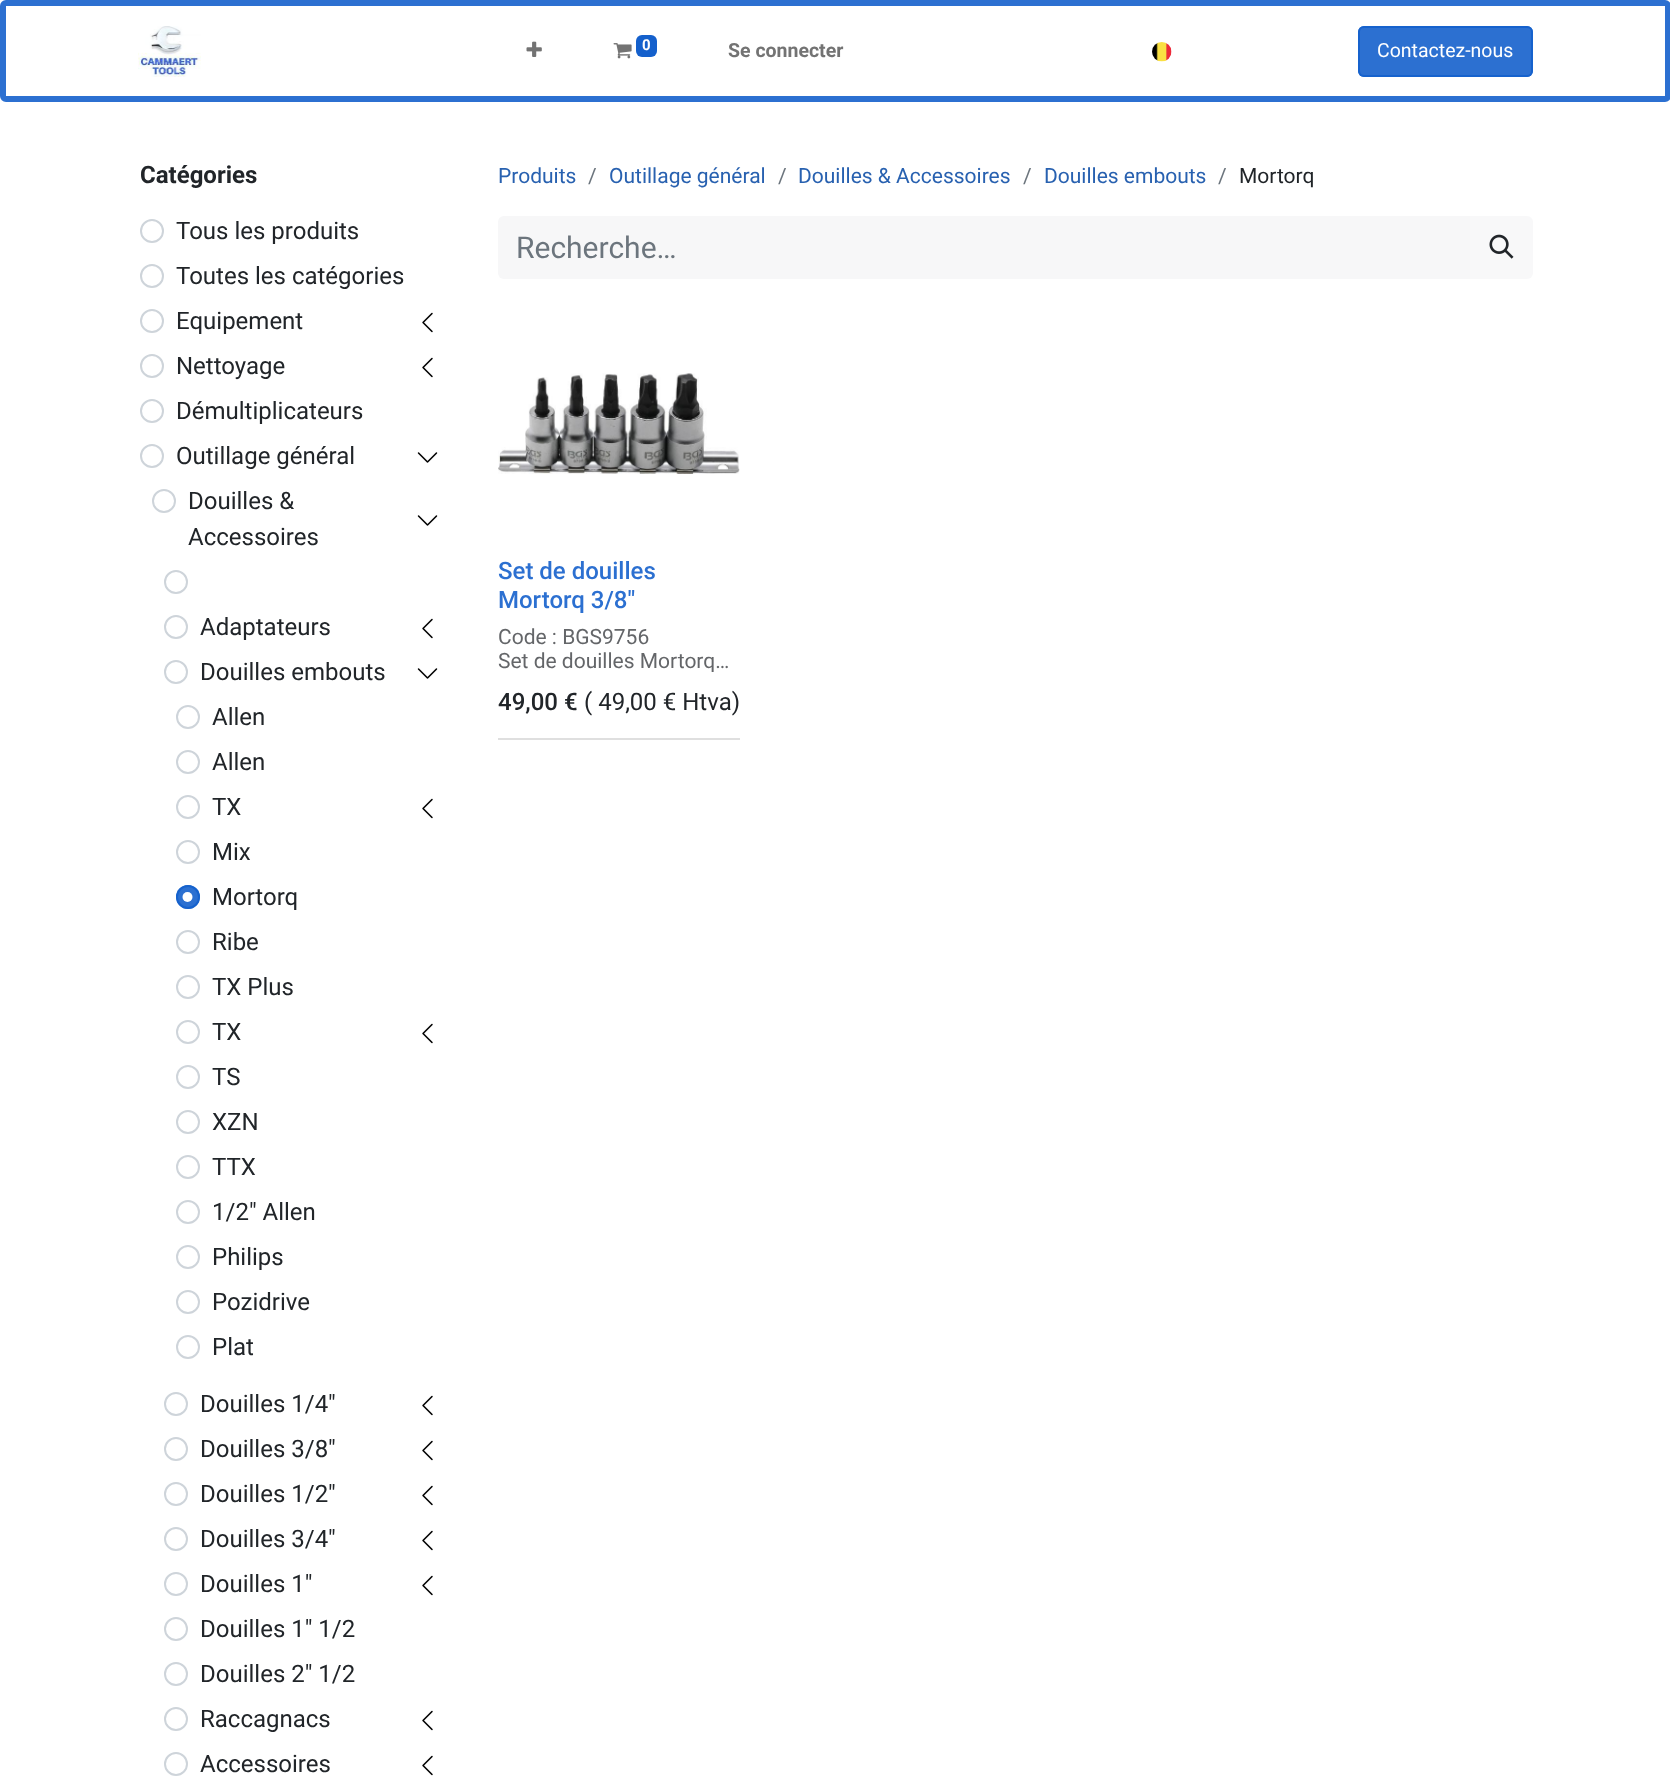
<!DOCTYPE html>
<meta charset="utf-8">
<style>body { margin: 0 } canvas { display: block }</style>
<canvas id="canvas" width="1670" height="1792"></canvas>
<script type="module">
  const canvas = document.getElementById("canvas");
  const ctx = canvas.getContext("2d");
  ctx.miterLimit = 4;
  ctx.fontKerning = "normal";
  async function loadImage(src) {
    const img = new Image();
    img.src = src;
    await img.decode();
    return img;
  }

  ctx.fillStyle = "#ffffff";
  ctx.fillRect(0, 0, 1670, 1792);
  ctx.beginPath();
  ctx.roundRect(3, 3, 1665, 96, 3);
  ctx.strokeStyle = "#2c70d1";
  ctx.lineWidth = 6;
  ctx.stroke();
  ctx.drawImage(await loadImage("img1.png"), 138, 26, 63, 51);
  ctx.drawImage(await loadImage("img2.png"), 526, 41, 16, 16);
  ctx.drawImage(await loadImage("img3.png"), 613, 43, 19, 16);
  ctx.fillStyle = "#1460cc";
  ctx.beginPath();
  ctx.roundRect(636, 35, 21, 22, 6);
  ctx.fill();
  ctx.font = "bold 15px Roboto";
  ctx.fillStyle = "#ffffff";
  ctx.fillText("0", 642, 50);
  ctx.font = "bold 19.5px Roboto";
  ctx.fillStyle = "#737373";
  ctx.fillText("Se connecter", 728, 57);
  ctx.drawImage(await loadImage("img4.png"), 1152, 42, 20, 20);
  ctx.fillStyle = "#2c70d1";
  ctx.beginPath();
  ctx.roundRect(1358, 26, 175, 51, 6);
  ctx.fill();
  ctx.beginPath();
  ctx.roundRect(1359, 27, 173, 49, 5);
  ctx.strokeStyle = "rgba(20, 96, 204, 0.9)";
  ctx.lineWidth = 2;
  ctx.stroke();
  ctx.font = "19.5px Roboto";
  ctx.fillStyle = "#ffffff";
  ctx.fillText("Contactez-nous", 1377, 57);
  ctx.font = "bold 24px Roboto";
  ctx.fillStyle = "#212529";
  ctx.fillText("Catégories", 140, 183);
  ctx.beginPath();
  ctx.arc(152, 231, 11, 0, Math.PI * 2);
  ctx.strokeStyle = "#ced4da";
  ctx.stroke();
  ctx.font = "24px Roboto";
  ctx.fillText("Tous les produits", 176, 239);
  ctx.beginPath();
  ctx.arc(152, 276, 11, 0, Math.PI * 2);
  ctx.stroke();
  ctx.fillText("Toutes les catégories", 176, 284);
  ctx.beginPath();
  ctx.arc(152, 321, 11, 0, Math.PI * 2);
  ctx.stroke();
  ctx.fillText("Equipement", 176, 329);
  ctx.drawImage(await loadImage("img5.png"), 422, 312, 11, 21);
  ctx.beginPath();
  ctx.arc(152, 366, 11, 0, Math.PI * 2);
  ctx.stroke();
  ctx.fillText("Nettoyage", 176, 374);
  ctx.drawImage(await loadImage("img5.png"), 422, 357, 11, 21);
  ctx.beginPath();
  ctx.arc(152, 411, 11, 0, Math.PI * 2);
  ctx.stroke();
  ctx.fillText("Démultiplicateurs", 176, 419);
  ctx.beginPath();
  ctx.arc(152, 456, 11, 0, Math.PI * 2);
  ctx.stroke();
  ctx.fillText("Outillage général", 176, 464);
  ctx.drawImage(await loadImage("img6.png"), 417, 452, 21, 11);
  ctx.beginPath();
  ctx.arc(164, 501, 11, 0, Math.PI * 2);
  ctx.stroke();
  ctx.fillText("Douilles &", 188, 509);
  ctx.fillText("Accessoires", 188, 545);
  ctx.drawImage(await loadImage("img6.png"), 417, 515, 21, 11);
  ctx.beginPath();
  ctx.arc(176, 582, 11, 0, Math.PI * 2);
  ctx.stroke();
  ctx.beginPath();
  ctx.arc(176, 627, 11, 0, Math.PI * 2);
  ctx.stroke();
  ctx.fillText("Adaptateurs", 200, 635);
  ctx.drawImage(await loadImage("img5.png"), 422, 618, 11, 21);
  ctx.beginPath();
  ctx.arc(176, 672, 11, 0, Math.PI * 2);
  ctx.stroke();
  ctx.fillText("Douilles embouts", 200, 680);
  ctx.drawImage(await loadImage("img6.png"), 417, 668, 21, 11);
  ctx.beginPath();
  ctx.arc(188, 717, 11, 0, Math.PI * 2);
  ctx.stroke();
  ctx.fillText("Allen", 212, 725);
  ctx.beginPath();
  ctx.arc(188, 762, 11, 0, Math.PI * 2);
  ctx.stroke();
  ctx.fillText("Allen", 212, 770);
  ctx.beginPath();
  ctx.arc(188, 807, 11, 0, Math.PI * 2);
  ctx.stroke();
  ctx.fillText("TX", 212, 815);
  ctx.drawImage(await loadImage("img5.png"), 422, 798, 11, 21);
  ctx.beginPath();
  ctx.arc(188, 852, 11, 0, Math.PI * 2);
  ctx.stroke();
  ctx.fillText("Mix", 212, 860);
  ctx.fillStyle = "#2c70d1";
  ctx.beginPath();
  ctx.arc(188, 897, 12, 0, Math.PI * 2);
  ctx.fill();
  ctx.fillStyle = "#ffffff";
  ctx.beginPath();
  ctx.arc(187.5, 897, 5, 0, Math.PI * 2);
  ctx.fill();
  ctx.beginPath();
  ctx.arc(188, 897, 11, 0, Math.PI * 2);
  ctx.strokeStyle = "rgba(20, 96, 204, 0.9)";
  ctx.stroke();
  ctx.fillStyle = "#212529";
  ctx.fillText("Mortorq", 212, 905);
  ctx.beginPath();
  ctx.arc(188, 942, 11, 0, Math.PI * 2);
  ctx.strokeStyle = "#ced4da";
  ctx.stroke();
  ctx.fillText("Ribe", 212, 950);
  ctx.beginPath();
  ctx.arc(188, 987, 11, 0, Math.PI * 2);
  ctx.stroke();
  ctx.fillText("TX Plus", 212, 995);
  ctx.beginPath();
  ctx.arc(188, 1032, 11, 0, Math.PI * 2);
  ctx.stroke();
  ctx.fillText("TX", 212, 1040);
  ctx.drawImage(await loadImage("img5.png"), 422, 1023, 11, 21);
  ctx.beginPath();
  ctx.arc(188, 1077, 11, 0, Math.PI * 2);
  ctx.stroke();
  ctx.fillText("TS", 212, 1085);
  ctx.beginPath();
  ctx.arc(188, 1122, 11, 0, Math.PI * 2);
  ctx.stroke();
  ctx.fillText("XZN", 212, 1130);
  ctx.beginPath();
  ctx.arc(188, 1167, 11, 0, Math.PI * 2);
  ctx.stroke();
  ctx.fillText("TTX", 212, 1175);
  ctx.beginPath();
  ctx.arc(188, 1212, 11, 0, Math.PI * 2);
  ctx.stroke();
  ctx.fillText("1/2\" Allen", 212, 1220);
  ctx.beginPath();
  ctx.arc(188, 1257, 11, 0, Math.PI * 2);
  ctx.stroke();
  ctx.fillText("Philips", 212, 1265);
  ctx.beginPath();
  ctx.arc(188, 1302, 11, 0, Math.PI * 2);
  ctx.stroke();
  ctx.fillText("Pozidrive", 212, 1310);
  ctx.beginPath();
  ctx.arc(188, 1347, 11, 0, Math.PI * 2);
  ctx.stroke();
  ctx.fillText("Plat", 212, 1355);
  ctx.beginPath();
  ctx.arc(176, 1404, 11, 0, Math.PI * 2);
  ctx.stroke();
  ctx.fillText("Douilles 1/4\"", 200, 1412);
  ctx.drawImage(await loadImage("img5.png"), 422, 1395, 11, 21);
  ctx.beginPath();
  ctx.arc(176, 1449, 11, 0, Math.PI * 2);
  ctx.stroke();
  ctx.fillText("Douilles 3/8\"", 200, 1457);
  ctx.drawImage(await loadImage("img5.png"), 422, 1440, 11, 21);
  ctx.beginPath();
  ctx.arc(176, 1494, 11, 0, Math.PI * 2);
  ctx.stroke();
  ctx.fillText("Douilles 1/2\"", 200, 1502);
  ctx.drawImage(await loadImage("img5.png"), 422, 1485, 11, 21);
  ctx.beginPath();
  ctx.arc(176, 1539, 11, 0, Math.PI * 2);
  ctx.stroke();
  ctx.fillText("Douilles 3/4\"", 200, 1547);
  ctx.drawImage(await loadImage("img5.png"), 422, 1530, 11, 21);
  ctx.beginPath();
  ctx.arc(176, 1584, 11, 0, Math.PI * 2);
  ctx.stroke();
  ctx.fillText("Douilles 1\"", 200, 1592);
  ctx.drawImage(await loadImage("img5.png"), 422, 1575, 11, 21);
  ctx.beginPath();
  ctx.arc(176, 1629, 11, 0, Math.PI * 2);
  ctx.stroke();
  ctx.fillText("Douilles 1\" 1/2", 200, 1637);
  ctx.beginPath();
  ctx.arc(176, 1674, 11, 0, Math.PI * 2);
  ctx.stroke();
  ctx.fillText("Douilles 2\" 1/2", 200, 1682);
  ctx.beginPath();
  ctx.arc(176, 1719, 11, 0, Math.PI * 2);
  ctx.stroke();
  ctx.fillText("Raccagnacs", 200, 1727);
  ctx.drawImage(await loadImage("img5.png"), 422, 1710, 11, 21);
  ctx.beginPath();
  ctx.arc(176, 1764, 11, 0, Math.PI * 2);
  ctx.stroke();
  ctx.fillText("Accessoires", 200, 1772);
  ctx.drawImage(await loadImage("img5.png"), 422, 1755, 11, 21);
  ctx.font = "21px Roboto";
  ctx.fillStyle = "#2861b0";
  ctx.fillText("Produits", 498, 183);
  ctx.fillStyle = "#6c757d";
  ctx.fillText("/", 588, 183);
  ctx.fillStyle = "#2861b0";
  ctx.fillText("Outillage général", 609, 183);
  ctx.fillStyle = "#6c757d";
  ctx.fillText("/", 778, 183);
  ctx.fillStyle = "#2861b0";
  ctx.fillText("Douilles & Accessoires", 798, 183);
  ctx.fillStyle = "#6c757d";
  ctx.fillText("/", 1023, 183);
  ctx.fillStyle = "#2861b0";
  ctx.fillText("Douilles embouts", 1044, 183);
  ctx.fillStyle = "#6c757d";
  ctx.fillText("/", 1218, 183);
  ctx.fillStyle = "#212529";
  ctx.fillText("Mortorq", 1239, 183);
  ctx.fillStyle = "#f7f7f8";
  ctx.beginPath();
  ctx.roundRect(498, 216, 974, 63, [6, 0, 0, 6]);
  ctx.fill();
  ctx.font = "30px Roboto";
  ctx.fillStyle = "#6c757d";
  ctx.fillText("Recherche…", 516, 258);
  ctx.fillStyle = "rgba(247, 247, 248, 0.9)";
  ctx.beginPath();
  ctx.roundRect(1470, 216, 63, 63, [0, 6, 6, 0]);
  ctx.fill();
  ctx.drawImage(await loadImage("img7.png"), 1489, 234, 25, 25);
  ctx.fillStyle = "#dfdfdf";
  ctx.fillRect(498, 738, 242, 2);
  ctx.drawImage(await loadImage("img8.png"), 498, 373, 242, 101);
  ctx.font = "500 24px Roboto";
  ctx.fillStyle = "#2c70d1";
  ctx.fillText("Set de douilles", 498, 579);
  ctx.fillText("Mortorq 3/8\"", 498, 608);
  ctx.font = "21px Roboto";
  ctx.fillStyle = "#646669";
  ctx.fillText("Code : BGS9756", 498, 644);
  ctx.save();
  ctx.beginPath();
  ctx.rect(498, 627, 242, 45);
  ctx.clip();
  ctx.fillText("Set de douilles Mortorq…", 498, 668);
  ctx.restore();
  ctx.font = "500 24px Roboto";
  ctx.fillStyle = "#212529";
  ctx.fillText("49,00 €", 498, 710);
  ctx.font = "24px Roboto";
  ctx.fillText("( 49,00 € Htva)", 584, 710);
</script>
